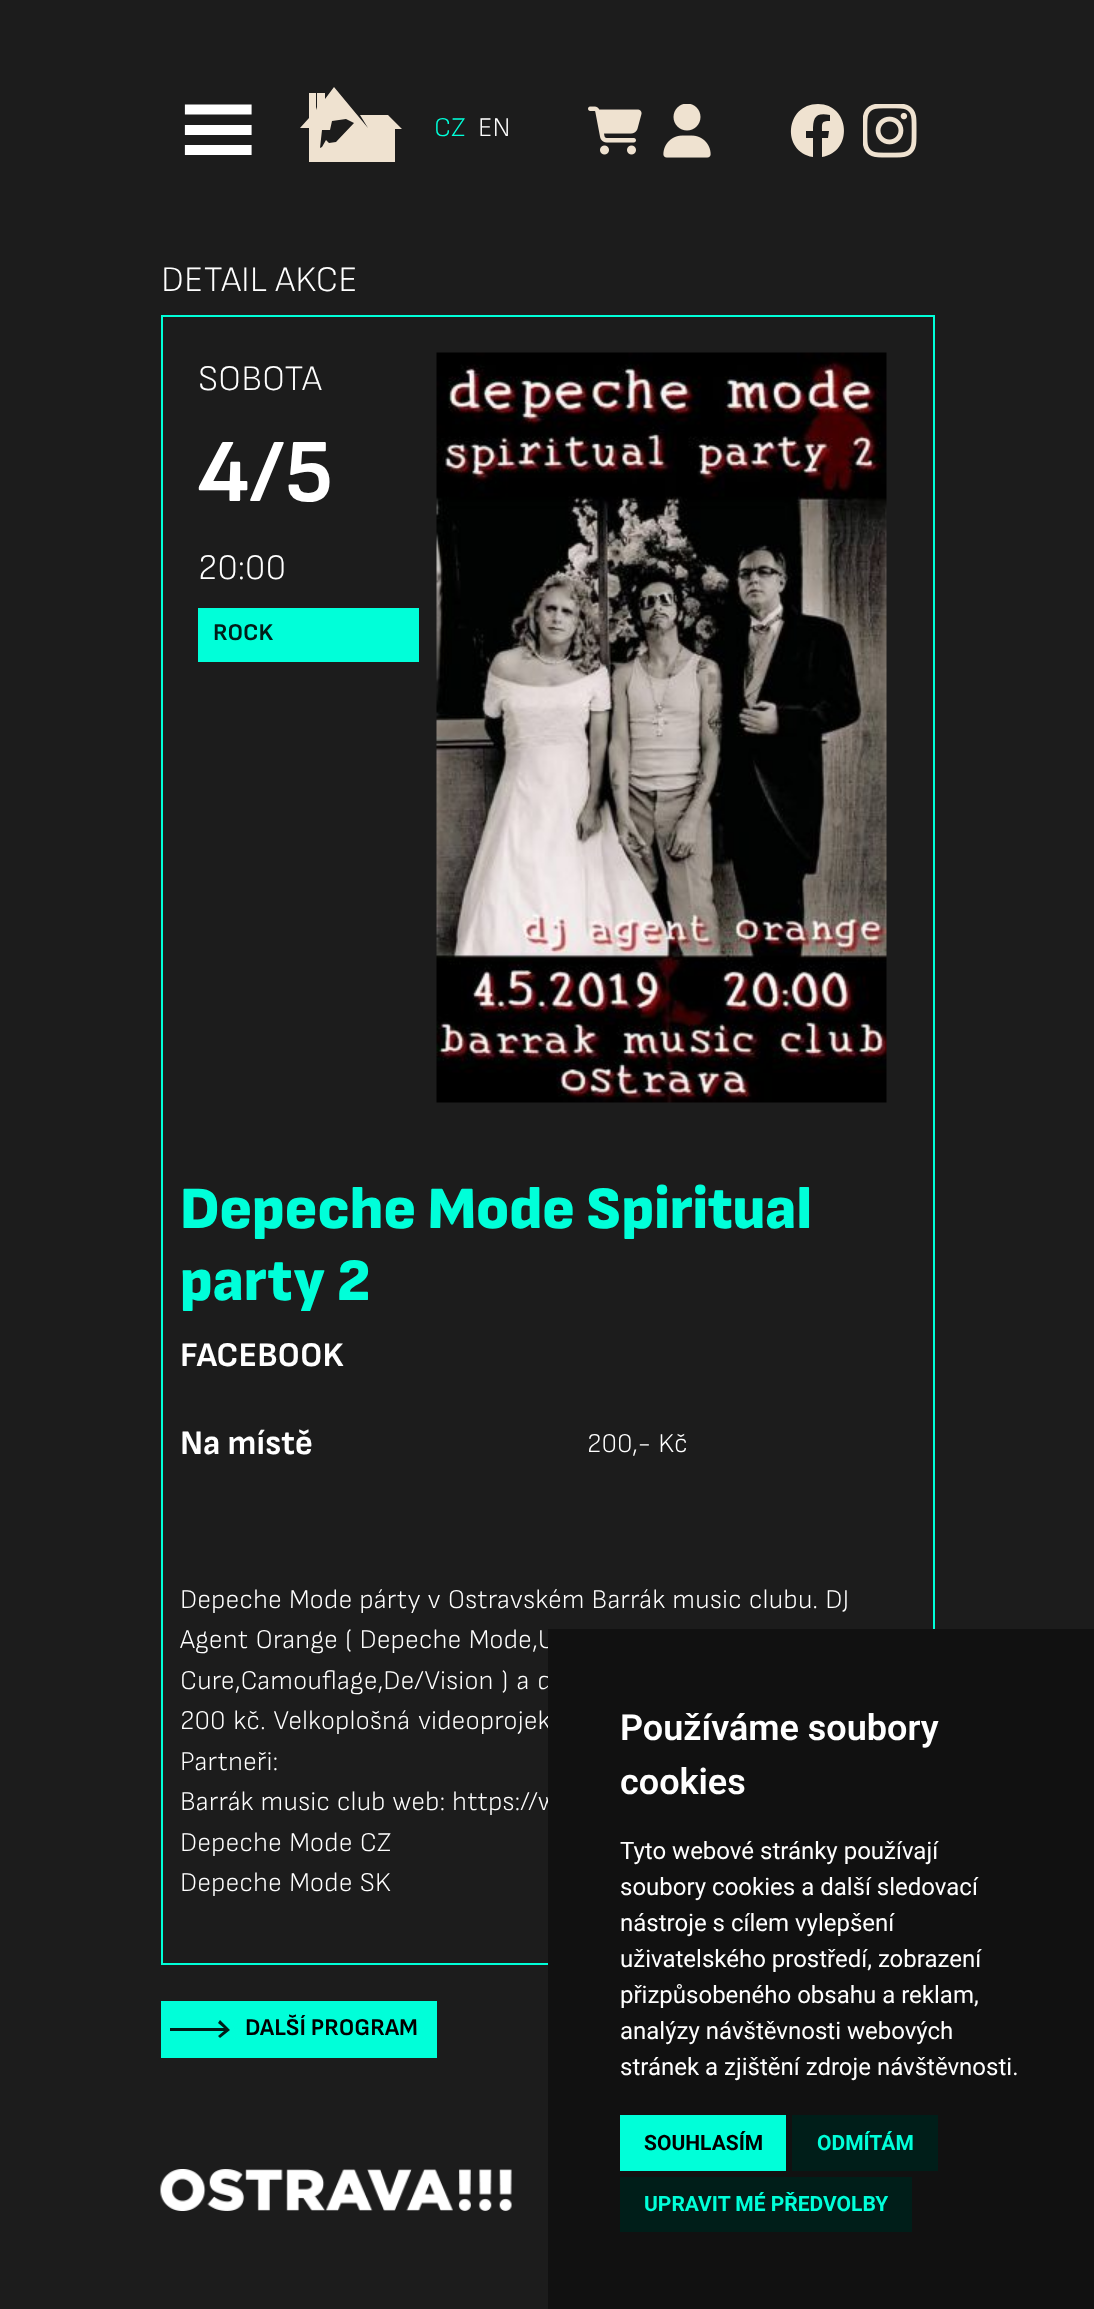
<!DOCTYPE html>
<meta charset="utf-8">
<style>body { margin: 0 } canvas { display: block }</style>
<canvas id="canvas" width="1094" height="2309"></canvas>
<script type="module">
  const canvas = document.getElementById("canvas");
  const ctx = canvas.getContext("2d");
  ctx.miterLimit = 4;
  ctx.fontKerning = "normal";
  async function loadImage(src) {
    const img = new Image();
    img.src = src;
    await img.decode();
    return img;
  }

  ctx.fillStyle = "#1c1c1c";
  ctx.fillRect(0, 0, 1094, 2309);
  ctx.beginPath();
  ctx.moveTo(190, 109.5);
  ctx.lineTo(246.5, 109.5);
  ctx.moveTo(190, 130);
  ctx.lineTo(246.5, 130);
  ctx.moveTo(190, 150);
  ctx.lineTo(246.5, 150);
  ctx.strokeStyle = "#ffffff";
  ctx.lineWidth = 10.2;
  ctx.lineCap = "square";
  ctx.stroke();
  ctx.fillStyle = "#efe2d0";
  ctx.beginPath();
  ctx.moveTo(388, 115);
  ctx.lineTo(360, 115);
  ctx.lineTo(368, 128);
  ctx.lineTo(334, 87);
  ctx.lineTo(325, 99);
  ctx.lineTo(325, 93);
  ctx.lineTo(317, 93);
  ctx.lineTo(317, 107);
  ctx.lineTo(316, 110);
  ctx.lineTo(316, 93);
  ctx.lineTo(309, 93);
  ctx.lineTo(309, 118);
  ctx.lineTo(300, 128);
  ctx.lineTo(309, 128);
  ctx.lineTo(309, 162);
  ctx.lineTo(395, 162);
  ctx.lineTo(395, 129);
  ctx.lineTo(402, 129);
  ctx.closePath();
  ctx.moveTo(336, 142);
  ctx.lineTo(329, 143);
  ctx.lineTo(326, 140);
  ctx.lineTo(322, 147);
  ctx.lineTo(320, 148);
  ctx.lineTo(322, 130);
  ctx.lineTo(330, 130);
  ctx.lineTo(332, 121);
  ctx.lineTo(346, 119);
  ctx.lineTo(354, 123);
  ctx.closePath();
  ctx.fill();
  ctx.font = "300 27px Sofia Sans";
  ctx.fillStyle = "#00ffd9";
  ctx.fillText("CZ", 434, 136);
  ctx.fillStyle = "#ffffff";
  ctx.fillText("EN", 478, 136);
  ctx.drawImage(await loadImage("img1.png"), 588, 106, 54, 49);
  ctx.drawImage(await loadImage("img2.png"), 663, 104, 48, 54);
  ctx.fillStyle = "#efe2d0";
  ctx.beginPath();
  ctx.moveTo(818, 104);
  ctx.bezierCurveTo(785, 104, 781, 152, 813, 157);
  ctx.lineTo(813, 138);
  ctx.lineTo(806, 138);
  ctx.lineTo(806, 131);
  ctx.lineTo(813, 131);
  ctx.bezierCurveTo(813, 118, 815, 112, 830, 115);
  ctx.lineTo(830, 121);
  ctx.bezierCurveTo(821, 121, 822, 123, 822, 131);
  ctx.lineTo(829, 131);
  ctx.lineTo(828, 138);
  ctx.lineTo(822, 138);
  ctx.lineTo(822, 157);
  ctx.bezierCurveTo(854, 152, 850, 104, 818, 104);
  ctx.closePath();
  ctx.fill();
  ctx.drawImage(await loadImage("img3.png"), 863, 104, 54, 54);
  ctx.font = "300 36px Sofia Sans";
  ctx.fillStyle = "#ffffff";
  ctx.fillText("DETAIL AKCE", 161, 291);
  ctx.strokeStyle = "#00ffd9";
  ctx.lineWidth = 2;
  ctx.strokeRect(162, 316, 772, 1648);
  ctx.fillText("SOBOTA", 198, 390);
  ctx.font = "bold 90px Sofia Sans";
  ctx.fillText("4/5", 198, 501);
  ctx.font = "300 36px Sofia Sans";
  ctx.fillText("20:00", 198, 579);
  ctx.fillStyle = "#00ffd9";
  ctx.fillRect(198, 608, 221, 54);
  ctx.font = "bold 24px Sofia Sans";
  ctx.fillStyle = "#001e19";
  ctx.fillText("ROCK", 213, 640);
  ctx.drawImage(await loadImage("img4.png"), 436, 352, 451, 751);
  ctx.font = "900 60px Sofia Sans";
  ctx.fillStyle = "#00ffd9";
  ctx.fillText("Depeche Mode Spiritual", 180, 1228);
  ctx.fillText("party 2", 180, 1300);
  ctx.font = "bold 34.5px Sofia Sans";
  ctx.fillStyle = "#ffffff";
  ctx.fillText("FACEBOOK", 180, 1366);
  ctx.fillText("Na místě", 180, 1454);
  ctx.wordSpacing = "1px";
  ctx.font = "300 27px Sofia Sans";
  ctx.fillText("200,- Kč", 587, 1452);
  ctx.wordSpacing = "0.75px";
  ctx.fillText("Depeche Mode párty v Ostravském Barrák music clubu. DJ", 180, 1608);
  ctx.wordSpacing = "1px";
  ctx.fillText("Agent Orange ( Depeche Mode,U", 180, 1648);
  ctx.wordSpacing = "1.5px";
  ctx.fillText("Cure,Camouflage,De/Vision ) a d", 180, 1689);
  ctx.fillText("200 kč. Velkoplošná videoprojek", 180, 1729);
  ctx.wordSpacing = "0px";
  ctx.fillText("Partneři:", 180, 1770);
  ctx.wordSpacing = "0.5px";
  ctx.fillText("Barrák music club web:", 180, 1810);
  ctx.wordSpacing = "0px";
  ctx.fillText("https://w", 452, 1810);
  ctx.wordSpacing = "1px";
  ctx.fillText("Depeche Mode CZ", 180, 1851);
  ctx.fillText("Depeche Mode SK", 180, 1891);
  ctx.fillStyle = "#00ffd9";
  ctx.fillRect(161, 2001, 276, 57);
  ctx.fillStyle = "#001e19";
  ctx.beginPath();
  ctx.moveTo(220, 2020);
  ctx.lineTo(218, 2023);
  ctx.lineTo(224, 2028);
  ctx.lineTo(170, 2028);
  ctx.lineTo(170, 2031);
  ctx.lineTo(224, 2031);
  ctx.lineTo(218, 2036);
  ctx.lineTo(220, 2038);
  ctx.lineTo(230, 2030);
  ctx.closePath();
  ctx.fill();
  ctx.wordSpacing = "0px";
  ctx.font = "bold 24px Sofia Sans";
  ctx.fillStyle = "#000000";
  ctx.fillText("DALŠÍ PROGRAM", 245, 2035);
  ctx.drawImage(await loadImage("img5.png"), 160, 2169, 352, 42);
  ctx.fillStyle = "#111111";
  ctx.fillRect(548, 1629, 546, 680);
  ctx.font = "600 36px Roboto";
  ctx.fillStyle = "#ffffff";
  ctx.fillText("Používáme soubory", 620, 1740);
  ctx.fillText("cookies", 620, 1794);
  ctx.font = "24px Roboto";
  ctx.fillText("Tyto webové stránky používají", 620, 1859);
  ctx.fillText("soubory cookies a další sledovací", 620, 1895);
  ctx.fillText("nástroje s cílem vylepšení", 620, 1931);
  ctx.fillText("uživatelského prostředí, zobrazení", 620, 1967);
  ctx.fillText("přizpůsobeného obsahu a reklam,", 620, 2003);
  ctx.fillText("analýzy návštěvnosti webových", 620, 2039);
  ctx.fillText("stránek a zjištění zdroje návštěvnosti.", 620, 2075);
  ctx.fillStyle = "#00ffd9";
  ctx.fillRect(620, 2115, 166, 56);
  ctx.font = "bold 21px Roboto";
  ctx.fillStyle = "#000000";
  ctx.fillText("SOUHLASÍM", 644, 2150);
  ctx.fillStyle = "#001e19";
  ctx.fillRect(792, 2115, 146, 56);
  ctx.fillStyle = "#00ffd9";
  ctx.fillText("ODMÍTÁM", 817, 2150);
  ctx.fillStyle = "#001e19";
  ctx.fillRect(620, 2177, 292, 55);
  ctx.fillStyle = "#00ffd9";
  ctx.fillText("UPRAVIT MÉ PŘEDVOLBY", 644, 2211);
</script>
